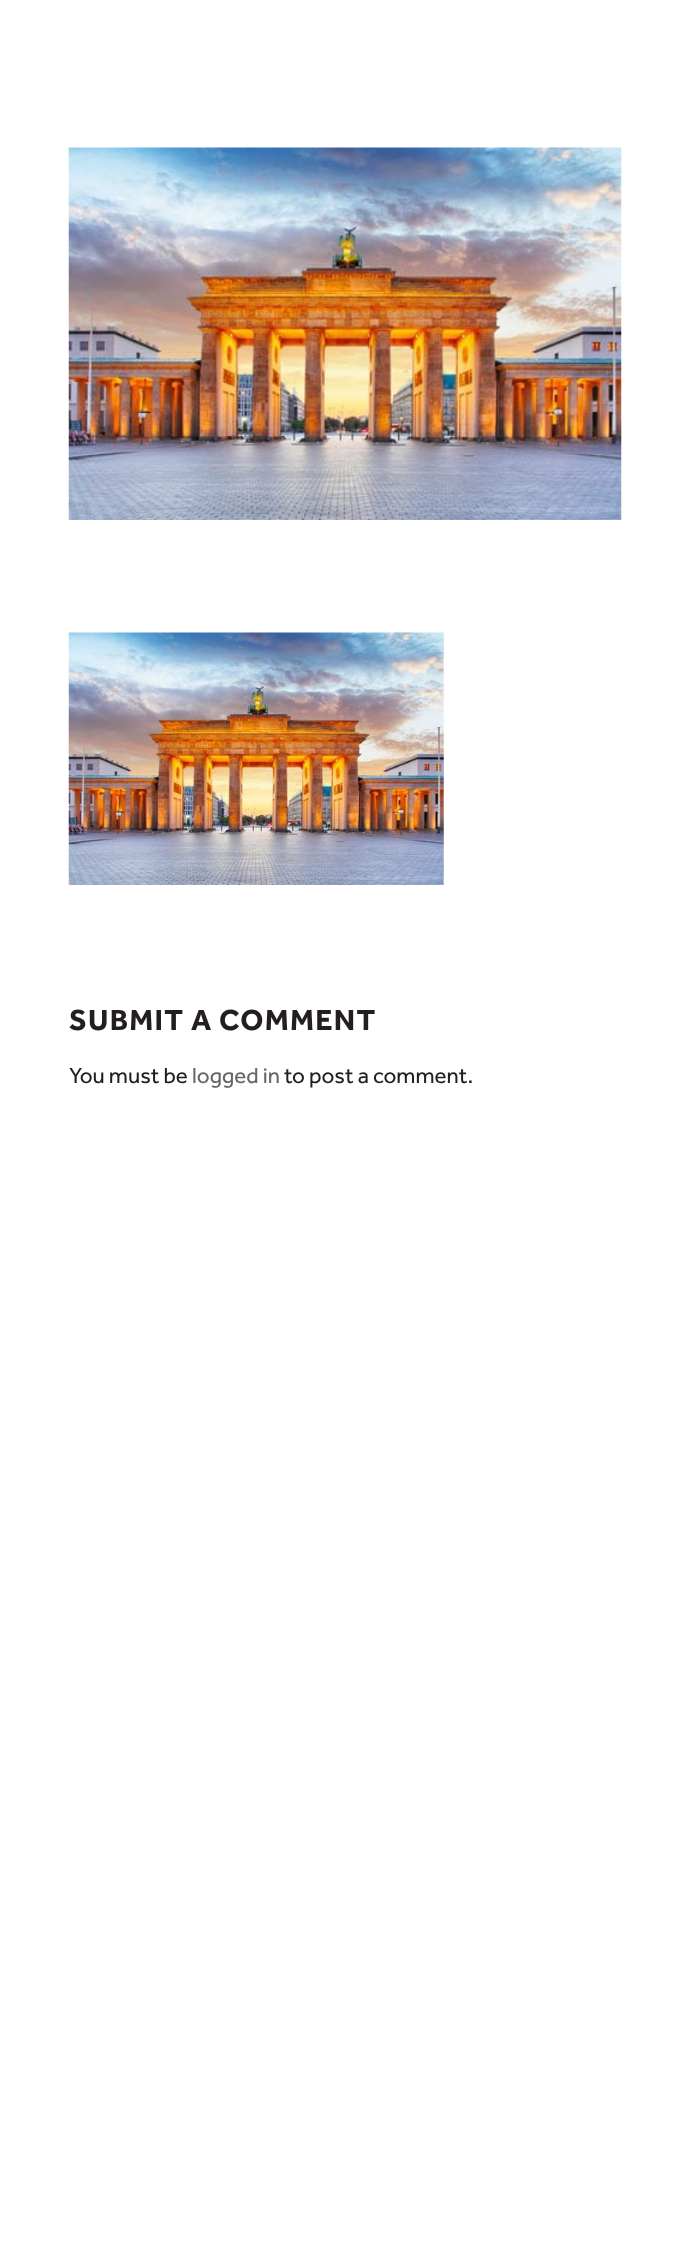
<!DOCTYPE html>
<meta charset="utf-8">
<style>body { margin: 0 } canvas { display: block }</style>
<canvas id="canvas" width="690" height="2250"></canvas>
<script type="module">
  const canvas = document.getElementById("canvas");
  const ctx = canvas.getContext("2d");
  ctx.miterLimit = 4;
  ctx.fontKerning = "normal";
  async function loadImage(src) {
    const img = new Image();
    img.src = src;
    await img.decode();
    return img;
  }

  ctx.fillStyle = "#ffffff";
  ctx.fillRect(0, 0, 690, 2250);
  ctx.drawImage(await loadImage("img1.png"), 68, 147, 554, 373);
  ctx.drawImage(await loadImage("img2.png"), 68, 632, 376, 253);
  ctx.letterSpacing = "1.25px";
  ctx.font = "bold 30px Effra";
  ctx.fillStyle = "#231e22";
  ctx.fillText("SUBMIT A COMMENT", 69, 1030);
  ctx.letterSpacing = "0px";
  ctx.font = "22.5px Effra";
  ctx.fillText("You must be", 69, 1083);
  ctx.fillStyle = "#666666";
  ctx.fillText("logged in", 192, 1083);
  ctx.fillStyle = "#231e22";
  ctx.fillText("to post a comment.", 284, 1083);
</script>
